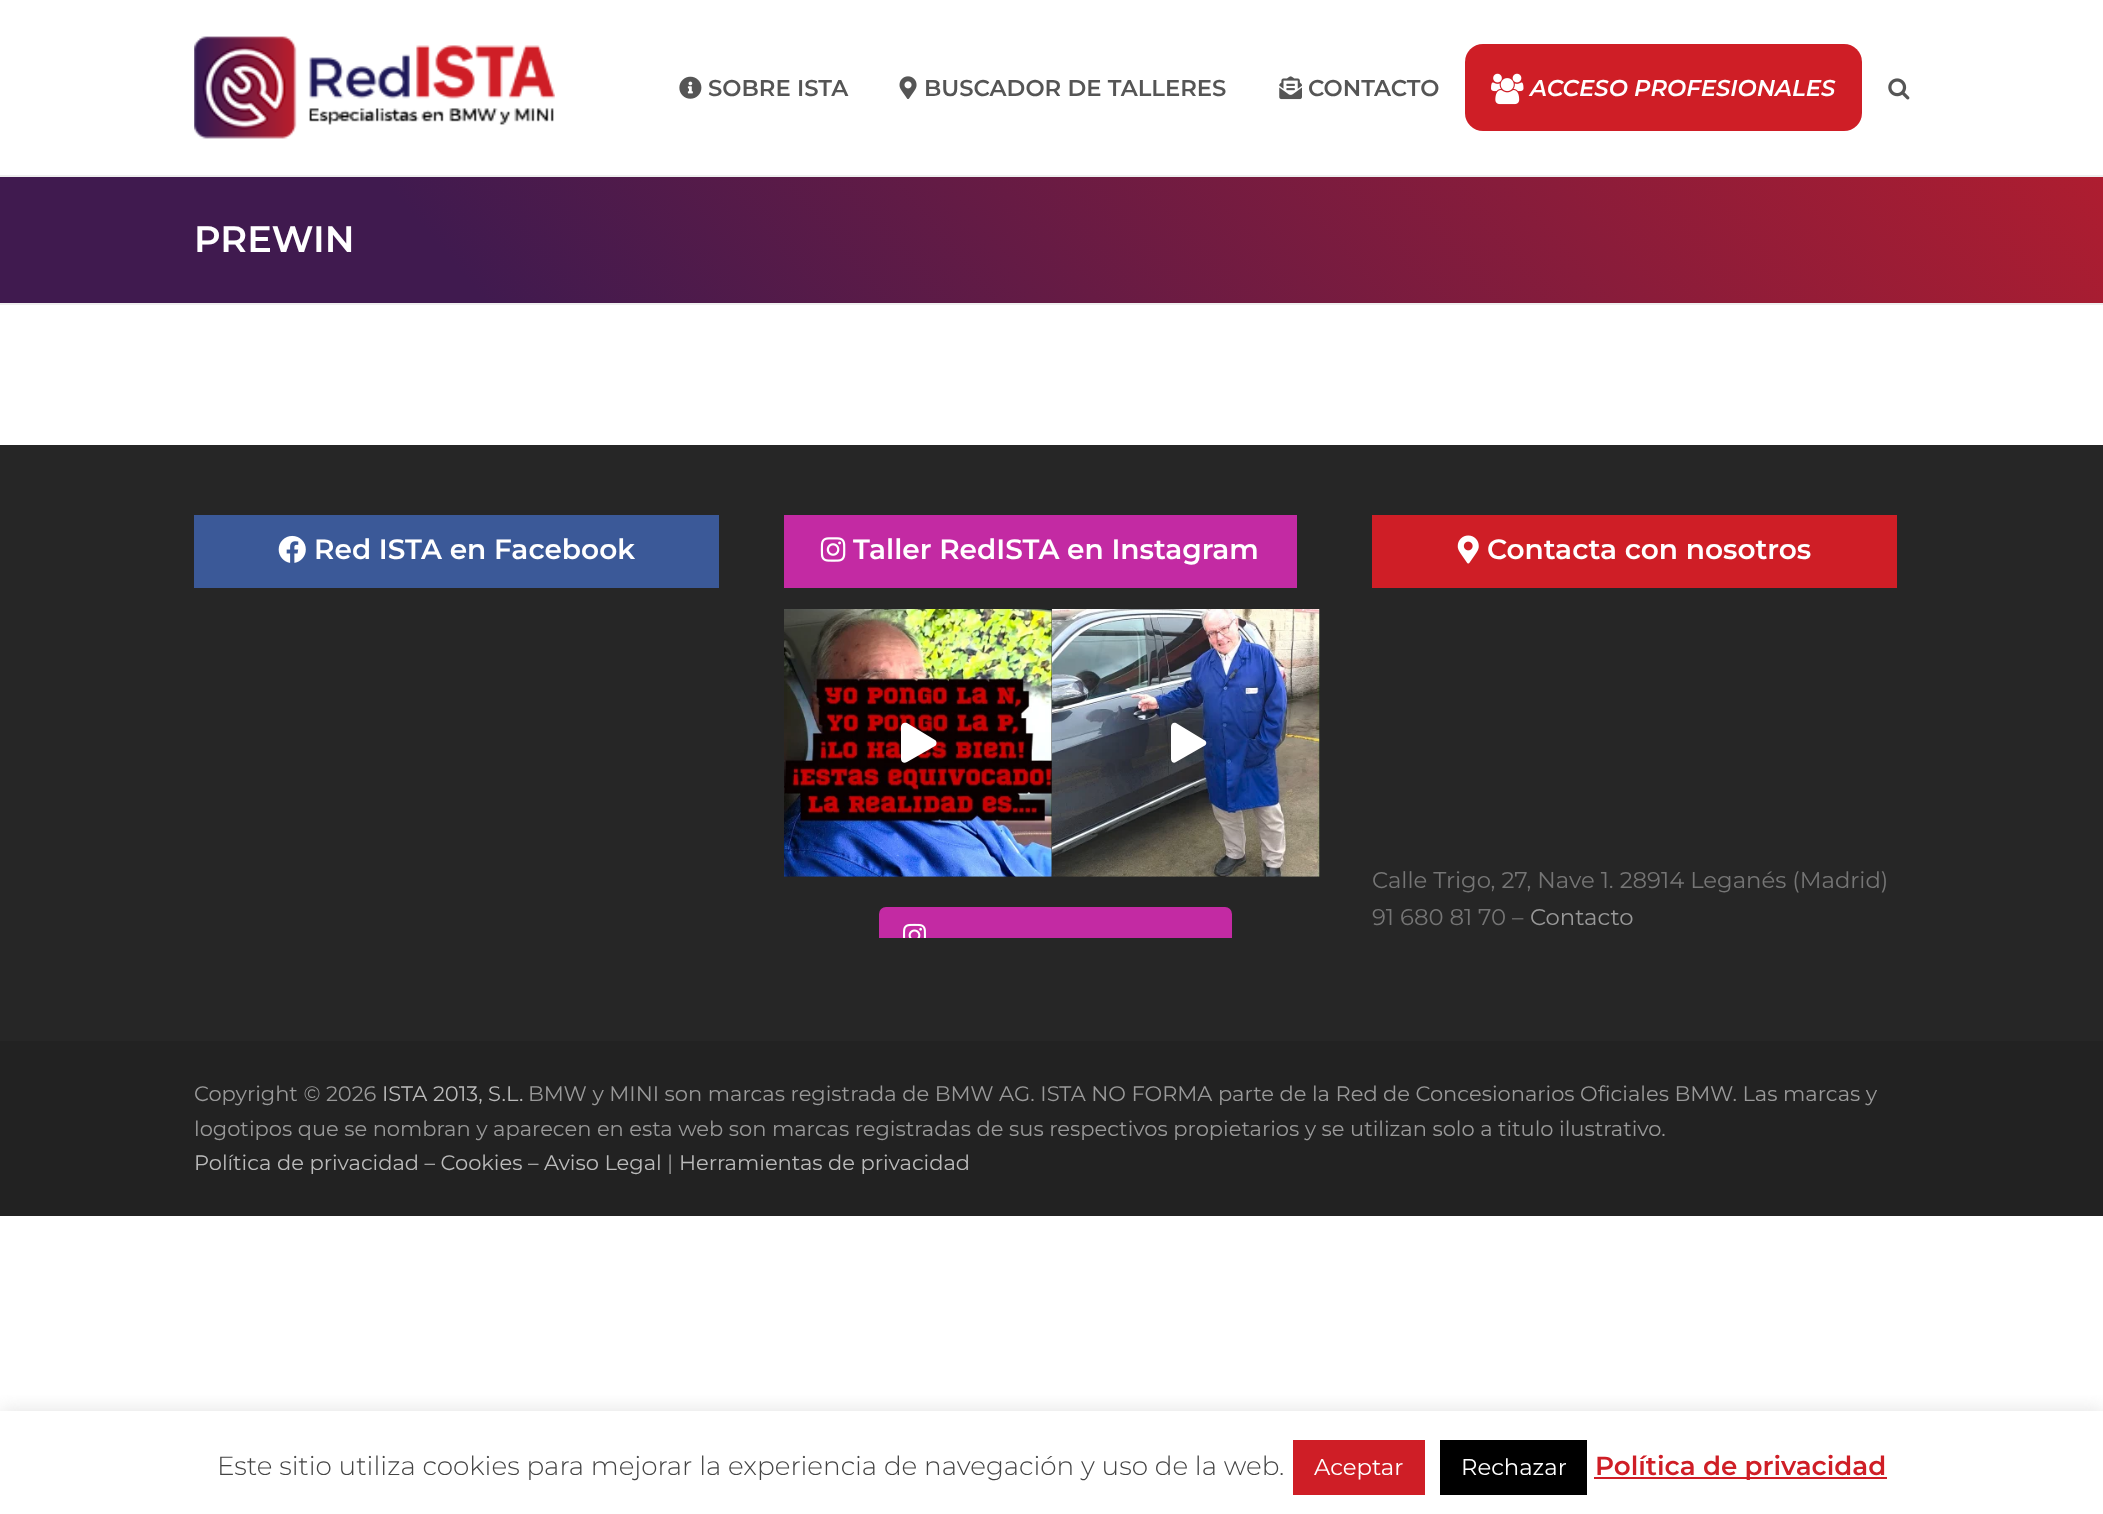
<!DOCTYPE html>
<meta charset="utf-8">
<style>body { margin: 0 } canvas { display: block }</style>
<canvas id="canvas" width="2103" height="1514"></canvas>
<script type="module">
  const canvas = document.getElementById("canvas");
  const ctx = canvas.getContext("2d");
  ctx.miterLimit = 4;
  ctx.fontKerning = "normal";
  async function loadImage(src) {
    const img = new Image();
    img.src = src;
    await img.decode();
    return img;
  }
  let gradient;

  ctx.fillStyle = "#ffffff";
  ctx.fillRect(0, 0, 2103, 1514);
  ctx.drawImage(await loadImage("img1.png"), 194, 36, 361, 103);
  ctx.drawImage(await loadImage("img2.png"), 679, 76, 23, 23);
  ctx.font = "600 22.75px Montserrat";
  ctx.fillStyle = "#555555";
  ctx.fillText("SOBRE ISTA", 708, 96);
  ctx.drawImage(await loadImage("img3.png"), 899, 76, 18, 23);
  ctx.fillText("BUSCADOR DE TALLERES", 924, 96);
  ctx.drawImage(await loadImage("img4.png"), 1279, 76, 23, 24);
  ctx.fillText("CONTACTO", 1308, 96);
  ctx.fillStyle = "#cf1e26";
  ctx.beginPath();
  ctx.roundRect(1465, 44, 397, 87, 18);
  ctx.fill();
  ctx.drawImage(await loadImage("img5.png"), 1491, 73, 33, 32);
  ctx.font = "italic 600 22.75px Montserrat";
  ctx.fillStyle = "#ffffff";
  ctx.fillText("ACCESO PROFESIONALES", 1530, 96);
  ctx.drawImage(await loadImage("img6.png"), 1888, 78, 22, 22);
  gradient = ctx.createLinearGradient(404, 784, 1700, -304);
  gradient.addColorStop(0, "#401a4f");
  gradient.addColorStop(0.22, "#401a4f");
  gradient.addColorStop(1, "#ae1d30");
  ctx.fillStyle = gradient;
  ctx.fillRect(0, 177, 2103, 126);
  ctx.fillStyle = "#eeeeee";
  ctx.fillRect(0, 175, 2103, 2);
  ctx.fillRect(0, 303, 2103, 2);
  ctx.font = "600 36.75px Montserrat";
  ctx.fillStyle = "#ffffff";
  ctx.fillText("PREWIN", 194, 252);
  ctx.fillStyle = "#262626";
  ctx.fillRect(0, 445, 2103, 596);
  ctx.fillStyle = "#3b5998";
  ctx.fillRect(194, 515, 525, 73);
  ctx.drawImage(await loadImage("img7.png"), 278, 535, 28, 28);
  ctx.font = "600 28px Montserrat";
  ctx.fillStyle = "#ffffff";
  ctx.fillText("Red ISTA en Facebook", 314, 559);
  ctx.fillStyle = "#c32aa3";
  ctx.fillRect(784, 515, 513, 73);
  ctx.drawImage(await loadImage("img8.png"), 820, 537, 26, 25);
  ctx.fillStyle = "#ffffff";
  ctx.fillText("Taller RedISTA en Instagram", 853, 559);
  ctx.drawImage(await loadImage("img9.png"), 784, 609, 268, 268);
  ctx.beginPath();
  ctx.moveTo(935, 740);
  ctx.lineTo(907, 723);
  ctx.bezierCurveTo(905, 722, 901, 723, 901, 727);
  ctx.lineTo(901, 759);
  ctx.bezierCurveTo(901, 762, 904, 764, 907, 762);
  ctx.lineTo(935, 746);
  ctx.bezierCurveTo(937, 745, 937, 741, 935, 740);
  ctx.closePath();
  ctx.fill();
  ctx.drawImage(await loadImage("img10.png"), 1051, 609, 269, 268);
  ctx.beginPath();
  ctx.moveTo(1204, 740);
  ctx.lineTo(1176, 723);
  ctx.bezierCurveTo(1174, 722, 1171, 723, 1171, 727);
  ctx.lineTo(1171, 759);
  ctx.bezierCurveTo(1171, 762, 1174, 764, 1176, 762);
  ctx.lineTo(1204, 746);
  ctx.bezierCurveTo(1207, 745, 1207, 741, 1204, 740);
  ctx.closePath();
  ctx.fill();
  ctx.fillStyle = "#c32aa3";
  ctx.beginPath();
  ctx.roundRect(879, 907, 353, 31, [7, 7, 0, 0]);
  ctx.fill();
  ctx.drawImage(await loadImage("img11.png"), 903, 923, 23, 15);
  ctx.fillStyle = "#cf1e26";
  ctx.fillRect(1372, 515, 525, 73);
  ctx.drawImage(await loadImage("img12.png"), 1457, 535, 22, 29);
  ctx.fillStyle = "#ffffff";
  ctx.fillText("Contacta con nosotros", 1487, 559);
  ctx.font = "100 22.75px Montserrat";
  ctx.fillStyle = "#757575";
  ctx.fillText("Calle Trigo, 27, Nave 1. 28914 Leganés (Madrid)", 1372, 888);
  ctx.fillText("91 680 81 70 –", 1372, 925);
  ctx.fillStyle = "#999999";
  ctx.fillText("Contacto", 1530, 925);
  ctx.fillStyle = "#222222";
  ctx.fillRect(0, 1041, 2103, 175);
  ctx.font = "100 21px Montserrat";
  ctx.fillStyle = "#999999";
  ctx.fillText("Copyright © 2026", 194, 1101);
  ctx.fillStyle = "#bbbbbb";
  ctx.fillText("ISTA 2013, S.L.", 382, 1101);
  ctx.fillStyle = "#999999";
  ctx.fillText("BMW y MINI son marcas registrada de BMW AG. ISTA NO FORMA parte de la Red de Concesionarios Oficiales BMW. Las marcas y", 528, 1101);
  ctx.fillText("logotipos que se nombran y aparecen en esta web son marcas registradas de sus respectivos propietarios y se utilizan solo a titulo ilustrativo.", 194, 1136);
  ctx.fillStyle = "#bbbbbb";
  ctx.fillText("Política de privacidad – Cookies – Aviso Legal", 194, 1170);
  ctx.fillStyle = "#999999";
  ctx.fillText("|", 667, 1170);
  ctx.fillStyle = "#bbbbbb";
  ctx.fillText("Herramientas de privacidad", 679, 1170);
  ctx.save();
  ctx.beginPath();
  ctx.rect(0, 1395, 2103, 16);
  ctx.clip();
  ctx.fillStyle = "rgba(172, 171, 171, 0.3)";
  ctx.filter = "blur(9px)";
  ctx.beginPath();
  ctx.rect(0, 1409, 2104, 105);
  ctx.fill();
  ctx.filter = "none";
  ctx.restore();
  ctx.font = "300 26.25px Montserrat";
  ctx.fillStyle = "#444444";
  ctx.fillText("Este sitio utiliza cookies para mejorar la experiencia de navegación y uso de la web.", 217, 1475);
  ctx.fillStyle = "#cf1e26";
  ctx.fillRect(1293, 1440, 132, 55);
  ctx.font = "100 22.75px Montserrat";
  ctx.fillStyle = "#ffffff";
  ctx.fillText("Aceptar", 1314, 1475);
  ctx.fillStyle = "#000000";
  ctx.fillRect(1440, 1440, 147, 55);
  ctx.fillStyle = "#ffffff";
  ctx.fillText("Rechazar", 1461, 1475);
  ctx.fillStyle = "#cf1e26";
  ctx.fillRect(1594, 1477, 293, 2);
  ctx.font = "600 26.25px Montserrat";
  ctx.fillText("Política de privacidad", 1595, 1475);
</script>
